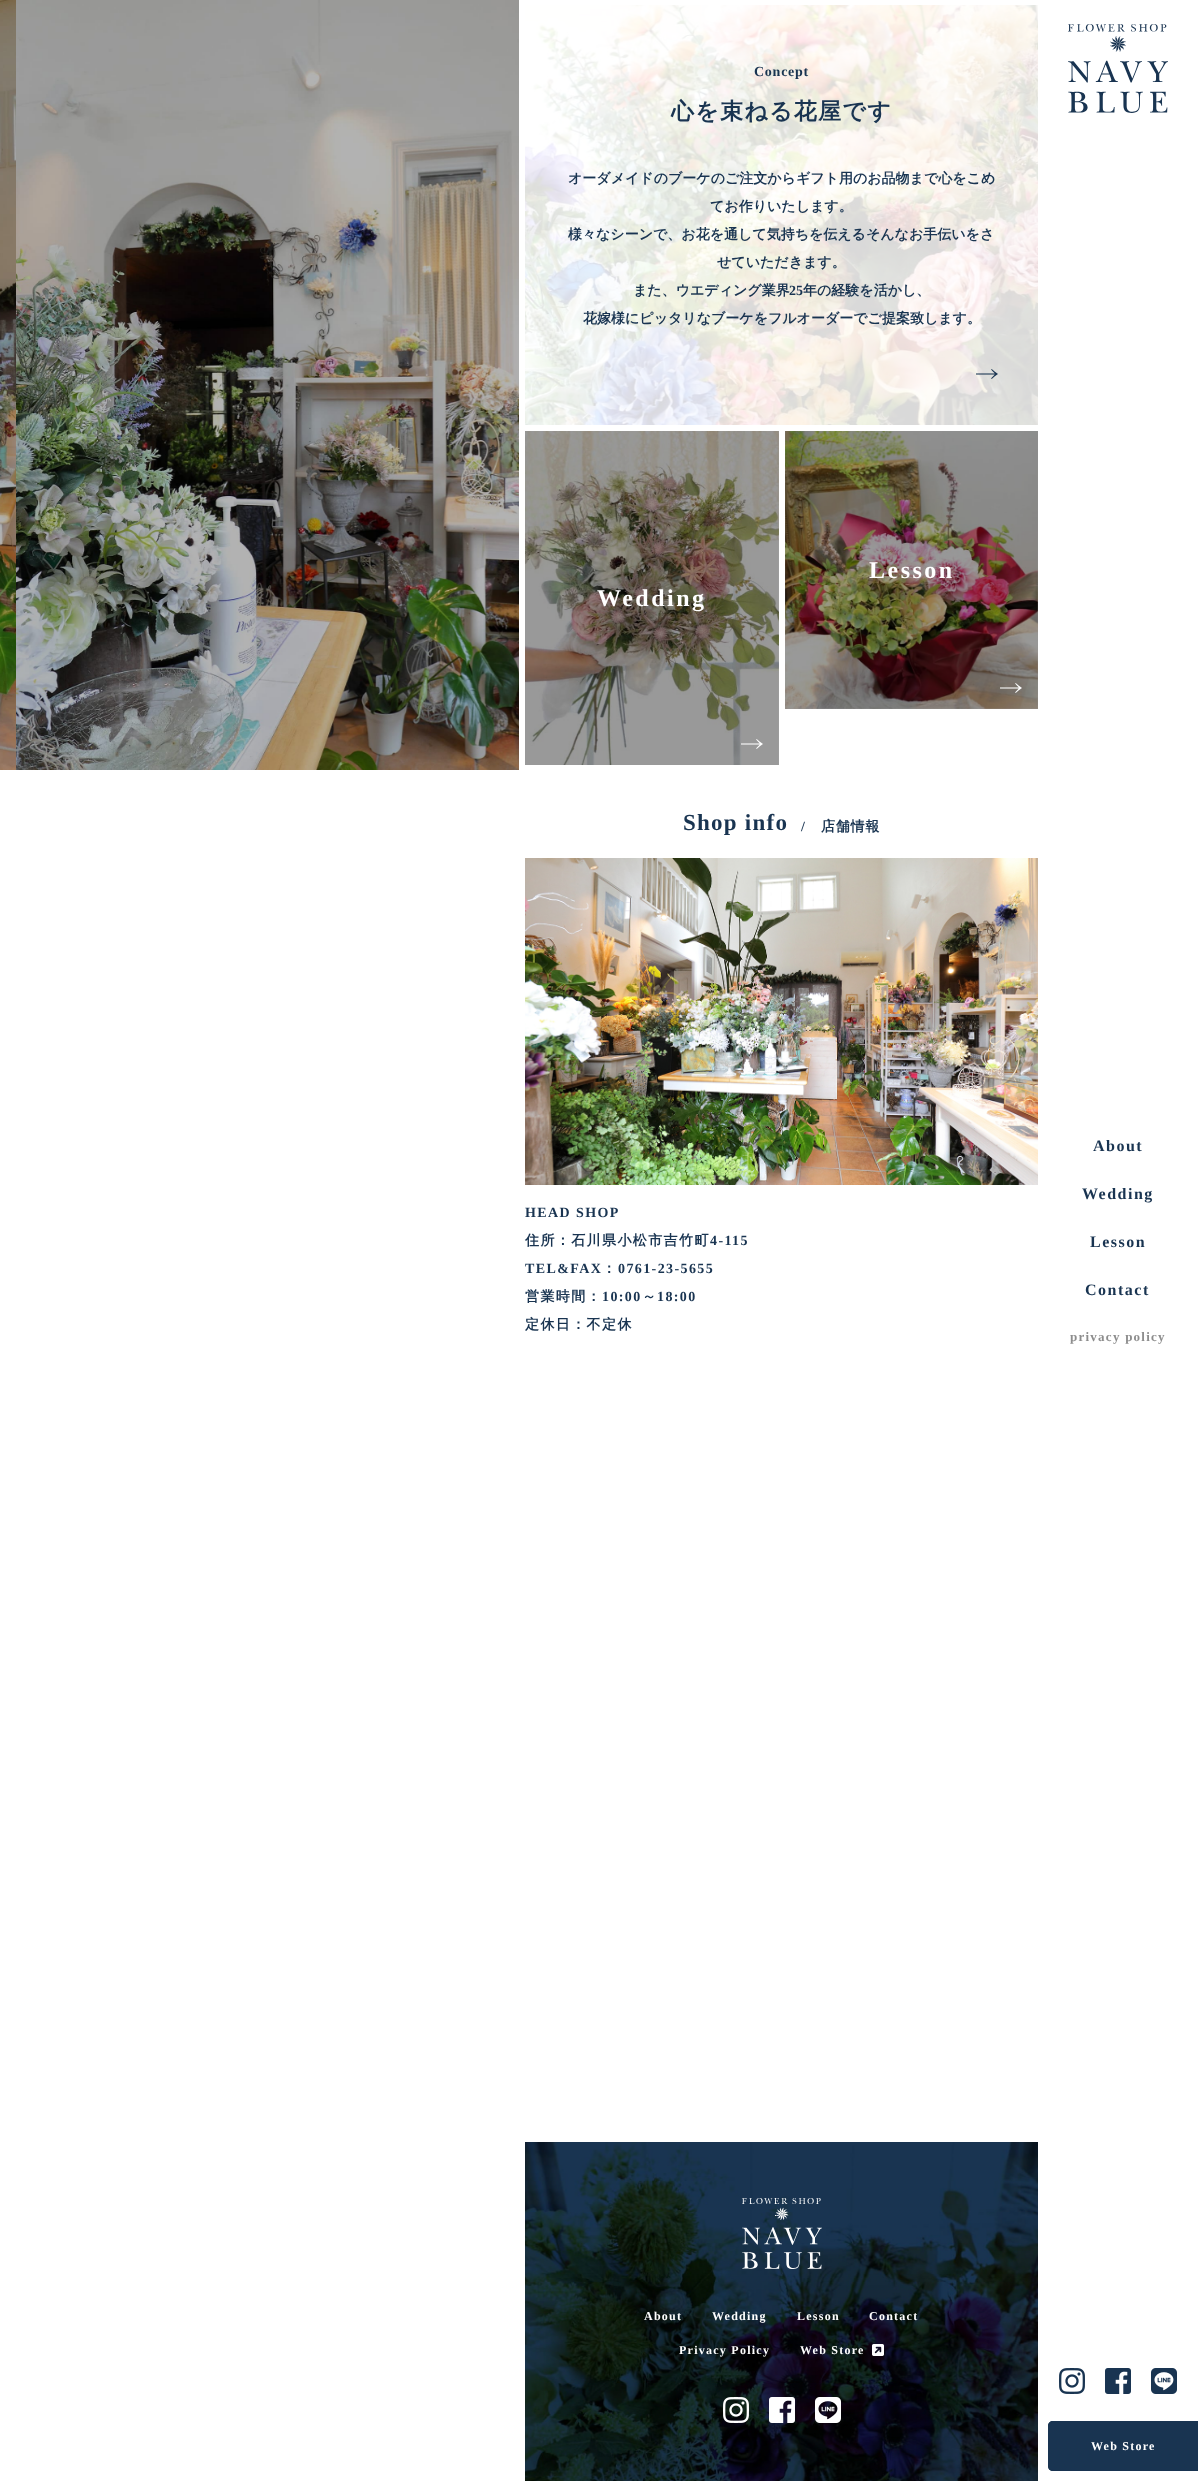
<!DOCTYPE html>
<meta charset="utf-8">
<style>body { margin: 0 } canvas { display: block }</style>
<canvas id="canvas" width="1198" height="2481"></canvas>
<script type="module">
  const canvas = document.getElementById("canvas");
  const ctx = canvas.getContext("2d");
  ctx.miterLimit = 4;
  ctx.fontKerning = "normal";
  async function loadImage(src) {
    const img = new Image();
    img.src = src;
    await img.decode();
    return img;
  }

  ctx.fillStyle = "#ffffff";
  ctx.fillRect(0, 0, 1198, 2481);
  ctx.fillStyle = "#999999";
  ctx.fillRect(785, 431, 253, 278);
  ctx.drawImage(await loadImage("img1.png"), 0, 0, 16, 770);
  ctx.drawImage(await loadImage("img2.png"), 16, 0, 503, 770);
  ctx.drawImage(await loadImage("img3.png"), 525, 5, 513, 420);
  ctx.letterSpacing = "0.75px";
  ctx.font = "bold 14px Liberation Serif";
  ctx.fillStyle = "#193451";
  ctx.fillText("Concept", 754, 76);
  ctx.letterSpacing = "1.25px";
  ctx.font = "bold 23px WenQuanYi Zen Hei";
  ctx.fillText("心を束ねる花屋です", 671, 119);
  ctx.letterSpacing = "0px";
  ctx.font = "bold 14px WenQuanYi Zen Hei";
  ctx.fillText("オーダメイドのブーケのご注文からギフト用のお品物まで心をこめ", 568, 183);
  ctx.fillText("てお作りいたします。", 710, 211);
  ctx.fillText("様々なシーンで、お花を通して気持ちを伝えるそんなお手伝いをさ", 568, 239);
  ctx.fillText("せていただきます。", 717, 267);
  ctx.fillText("また、ウエディング業界", 633, 295);
  ctx.font = "bold 14px Liberation Serif";
  ctx.fillText("25", 789, 295);
  ctx.font = "bold 14px WenQuanYi Zen Hei";
  ctx.fillText("年の経験を活かし、", 803, 295);
  ctx.fillText("花嫁様にピッタリなブーケをフルオーダーでご提案致します。", 583, 323);
  ctx.drawImage(await loadImage("img4.png"), 976, 369, 22, 10);
  ctx.drawImage(await loadImage("img5.png"), 785, 431, 253, 278);
  ctx.letterSpacing = "2.5px";
  ctx.font = "bold 24px Liberation Serif";
  ctx.fillStyle = "#ffffff";
  ctx.fillText("Lesson", 869, 578);
  ctx.drawImage(await loadImage("img6.png"), 1000, 683, 22, 10);
  ctx.drawImage(await loadImage("img7.png"), 525, 431, 254, 334);
  ctx.fillText("Wedding", 597, 606);
  ctx.drawImage(await loadImage("img8.png"), 741, 739, 22, 10);
  ctx.letterSpacing = "1.25px";
  ctx.font = "bold 23px Liberation Serif";
  ctx.fillStyle = "#193451";
  ctx.fillText("Shop info", 683, 830);
  ctx.letterSpacing = "0.75px";
  ctx.font = "bold 14px Liberation Serif";
  ctx.fillText("/", 801, 831);
  ctx.font = "bold 14px WenQuanYi Zen Hei";
  ctx.fillText("店舗情報", 821, 831);
  ctx.drawImage(await loadImage("img9.png"), 525, 858, 513, 327);
  ctx.letterSpacing = "1.4px";
  ctx.font = "bold 14px Liberation Serif";
  ctx.fillText("HEAD SHOP", 525, 1217);
  ctx.font = "bold 14px WenQuanYi Zen Hei";
  ctx.fillText("住所：石川県小松市吉竹町", 525, 1245);
  ctx.font = "bold 14px Liberation Serif";
  ctx.fillText("4-115", 710, 1245);
  ctx.fillText("TEL&FAX", 525, 1273);
  ctx.font = "bold 14px WenQuanYi Zen Hei";
  ctx.fillText("：", 602, 1273);
  ctx.font = "bold 14px Liberation Serif";
  ctx.fillText("0761-23-5655", 618, 1273);
  ctx.font = "bold 14px WenQuanYi Zen Hei";
  ctx.fillText("営業時間：", 525, 1301);
  ctx.font = "bold 14px Liberation Serif";
  ctx.fillText("10:00", 602, 1301);
  ctx.font = "bold 14px WenQuanYi Zen Hei";
  ctx.fillText("～", 642, 1301);
  ctx.font = "bold 14px Liberation Serif";
  ctx.fillText("18:00", 657, 1301);
  ctx.font = "bold 14px WenQuanYi Zen Hei";
  ctx.fillText("定休日：不定休", 525, 1329);
  ctx.drawImage(await loadImage("img10.png"), 525, 2142, 513, 339);
  ctx.drawImage(await loadImage("img11.png"), 742, 2198, 80, 71);
  ctx.letterSpacing = "1.25px";
  ctx.font = "bold 12px Liberation Serif";
  ctx.fillStyle = "#ffffff";
  ctx.fillText("About", 644, 2320);
  ctx.fillText("Wedding", 712, 2320);
  ctx.fillText("Lesson", 797, 2320);
  ctx.fillText("Contact", 869, 2320);
  ctx.fillText("Privacy Policy", 679, 2354);
  ctx.fillText("Web Store", 800, 2354);
  ctx.drawImage(await loadImage("img12.png"), 872, 2344, 12, 12);
  ctx.drawImage(await loadImage("img13.png"), 723, 2397, 26, 26);
  ctx.drawImage(await loadImage("img14.png"), 769, 2397, 26, 26);
  ctx.drawImage(await loadImage("img15.png"), 815, 2397, 26, 26);
  ctx.drawImage(await loadImage("img16.png"), 1068, 24, 100, 89);
  ctx.letterSpacing = "1.5px";
  ctx.font = "bold 16px Liberation Serif";
  ctx.fillStyle = "#193451";
  ctx.fillText("About", 1093, 1151);
  ctx.fillText("Wedding", 1082, 1199);
  ctx.fillText("Lesson", 1090, 1247);
  ctx.fillText("Contact", 1085, 1295);
  ctx.letterSpacing = "1.25px";
  ctx.font = "bold 13px Liberation Serif";
  ctx.fillStyle = "#8d8d8d";
  ctx.fillText("privacy policy", 1070, 1341);
  ctx.drawImage(await loadImage("img17.png"), 1059, 2368, 26, 26);
  ctx.drawImage(await loadImage("img18.png"), 1105, 2368, 26, 26);
  ctx.drawImage(await loadImage("img19.png"), 1151, 2368, 26, 26);
  ctx.fillStyle = "#193451";
  ctx.beginPath();
  ctx.roundRect(1048, 2421, 150, 50, [5, 0, 0, 5]);
  ctx.fill();
  ctx.beginPath();
  ctx.moveTo(1053, 2421);
  ctx.lineTo(1198, 2421);
  ctx.lineTo(1198, 2471);
  ctx.lineTo(1053, 2471);
  ctx.bezierCurveTo(1050, 2471, 1048, 2469, 1048, 2466);
  ctx.lineTo(1048, 2426);
  ctx.bezierCurveTo(1048, 2423, 1050, 2421, 1053, 2421);
  ctx.closePath();
  ctx.moveTo(1053, 2422);
  ctx.lineTo(1198, 2422);
  ctx.lineTo(1198, 2470);
  ctx.lineTo(1053, 2470);
  ctx.bezierCurveTo(1051, 2470, 1049, 2468, 1049, 2466);
  ctx.lineTo(1049, 2426);
  ctx.bezierCurveTo(1049, 2424, 1051, 2422, 1053, 2422);
  ctx.closePath();
  ctx.fill("evenodd");
  ctx.font = "bold 12px Liberation Serif";
  ctx.fillStyle = "#ffffff";
  ctx.fillText("Web Store", 1091, 2450);
</script>
